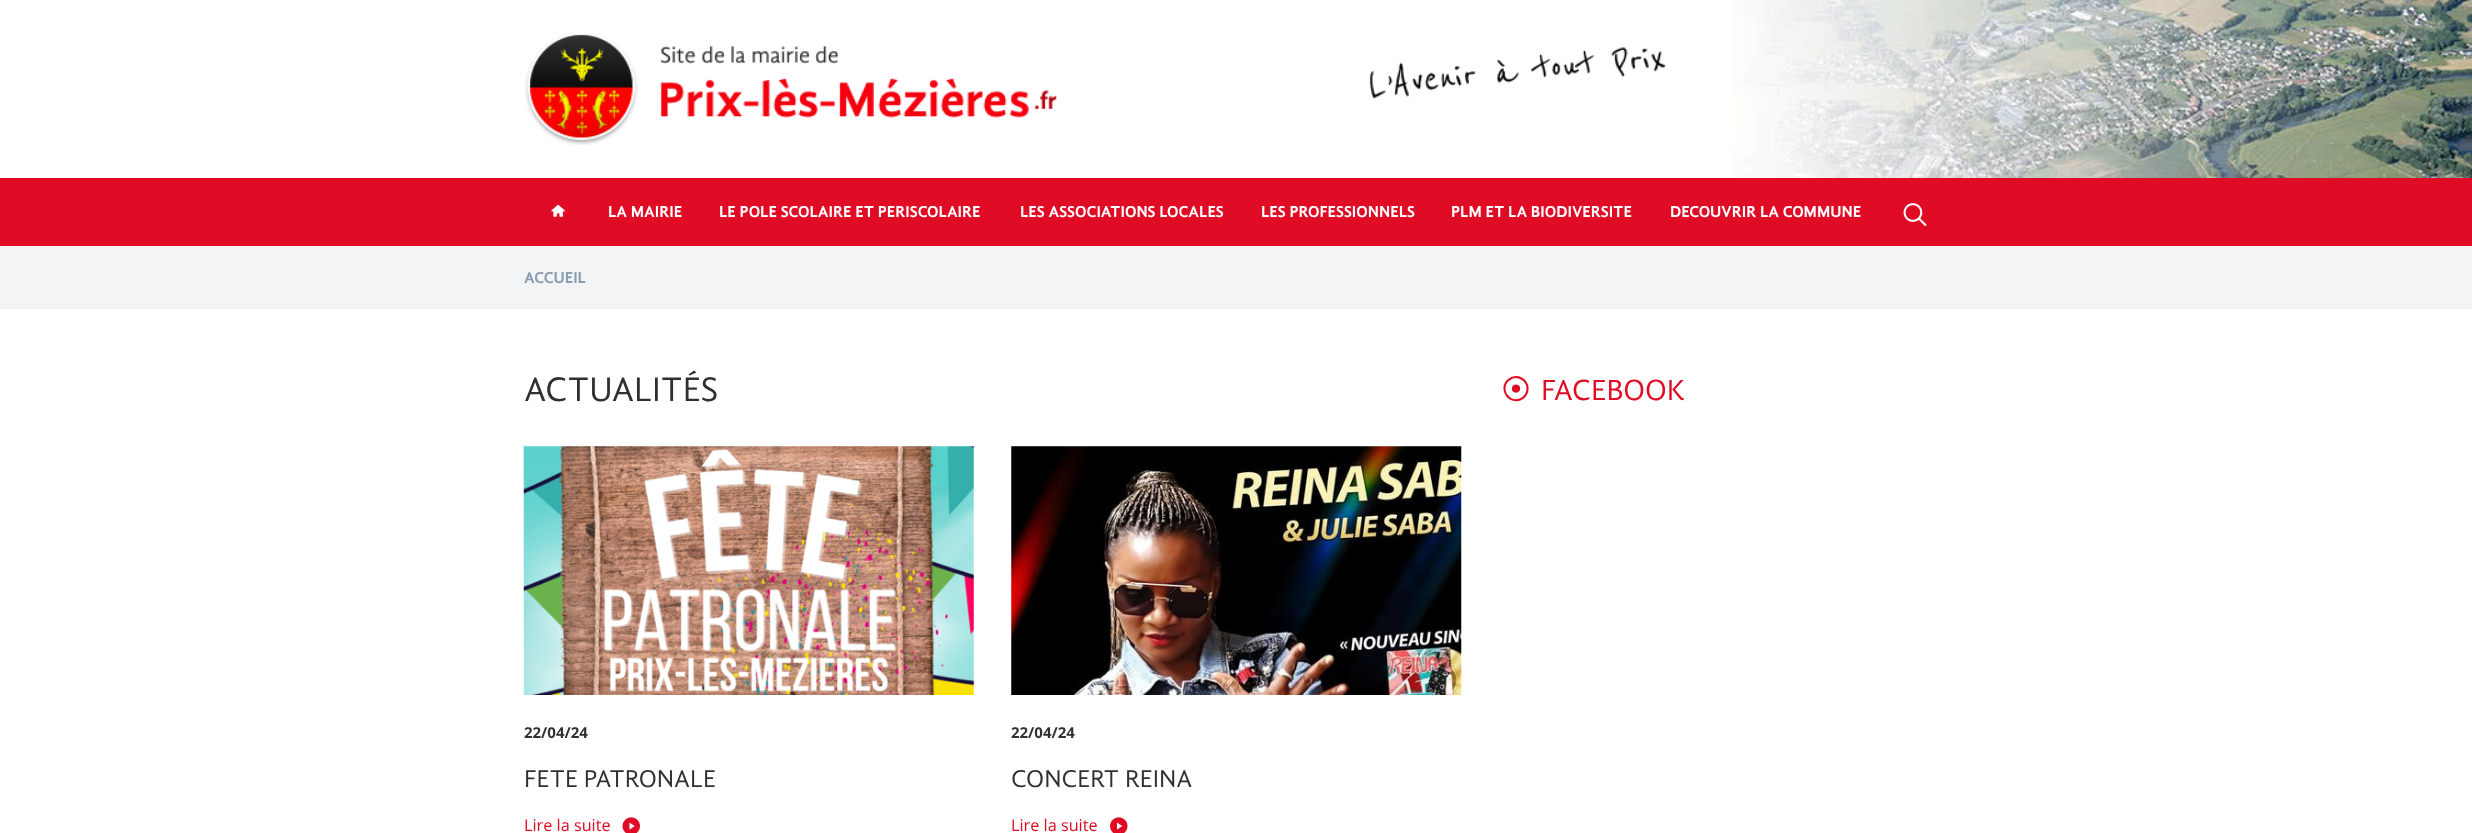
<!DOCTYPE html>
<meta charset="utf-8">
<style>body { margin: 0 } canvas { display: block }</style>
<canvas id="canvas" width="2472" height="833"></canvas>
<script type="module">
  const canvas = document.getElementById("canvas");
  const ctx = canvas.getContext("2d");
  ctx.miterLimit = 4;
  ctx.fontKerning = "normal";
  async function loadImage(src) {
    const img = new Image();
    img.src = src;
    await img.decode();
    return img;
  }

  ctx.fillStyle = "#ffffff";
  ctx.fillRect(0, 0, 2472, 833);
  ctx.drawImage(await loadImage("img1.png"), 1732, 0, 740, 178);
  ctx.drawImage(await loadImage("img2.png"), 525, 33, 532, 112);
  ctx.drawImage(await loadImage("img3.png"), 1369, 47, 297, 52);
  ctx.fillStyle = "#e00b24";
  ctx.fillRect(0, 178, 2472, 68);
  ctx.drawImage(await loadImage("img4.png"), 551, 204, 14, 13);
  ctx.font = "bold 16.25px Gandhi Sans";
  ctx.fillStyle = "#ffffff";
  ctx.fillText("LA MAIRIE", 608, 217);
  ctx.fillText("LE POLE SCOLAIRE ET PERISCOLAIRE", 719, 217);
  ctx.fillText("LES ASSOCIATIONS LOCALES", 1020, 217);
  ctx.fillText("LES PROFESSIONNELS", 1261, 217);
  ctx.fillText("PLM ET LA BIODIVERSITE", 1451, 217);
  ctx.fillText("DECOUVRIR LA COMMUNE", 1670, 217);
  ctx.drawImage(await loadImage("img5.png"), 1903, 203, 24, 23);
  ctx.fillStyle = "#f2f4f6";
  ctx.fillRect(0, 246, 2472, 63);
  ctx.fillStyle = "#899db0";
  ctx.fillText("ACCUEIL", 524, 283);
  ctx.font = "35px Gandhi Sans";
  ctx.fillStyle = "#2e3134";
  ctx.fillText("ACTUALITÉS", 524, 401);
  ctx.drawImage(await loadImage("img6.png"), 523, 446, 451, 249);
  ctx.font = "bold 15px Open Sans";
  ctx.fillText("22/04/24", 524, 738);
  ctx.font = "25px Gandhi Sans";
  ctx.fillText("FETE PATRONALE", 524, 787);
  ctx.font = "16.25px Open Sans";
  ctx.fillStyle = "#e00b24";
  ctx.fillText("Lire la suite", 524, 831);
  ctx.drawImage(await loadImage("img7.png"), 622, 817, 18, 16);
  ctx.drawImage(await loadImage("img8.png"), 1011, 446, 451, 249);
  ctx.font = "bold 15px Open Sans";
  ctx.fillStyle = "#2e3134";
  ctx.fillText("22/04/24", 1011, 738);
  ctx.font = "25px Gandhi Sans";
  ctx.fillText("CONCERT REINA", 1011, 787);
  ctx.font = "16.25px Open Sans";
  ctx.fillStyle = "#e00b24";
  ctx.fillText("Lire la suite", 1011, 831);
  ctx.drawImage(await loadImage("img9.png"), 1110, 817, 18, 16);
  ctx.font = "30px IPAGothic";
  ctx.fillText("⦿", 1501, 400);
  ctx.font = "30px Gandhi Sans";
  ctx.fillText("FACEBOOK", 1541, 400);
</script>
